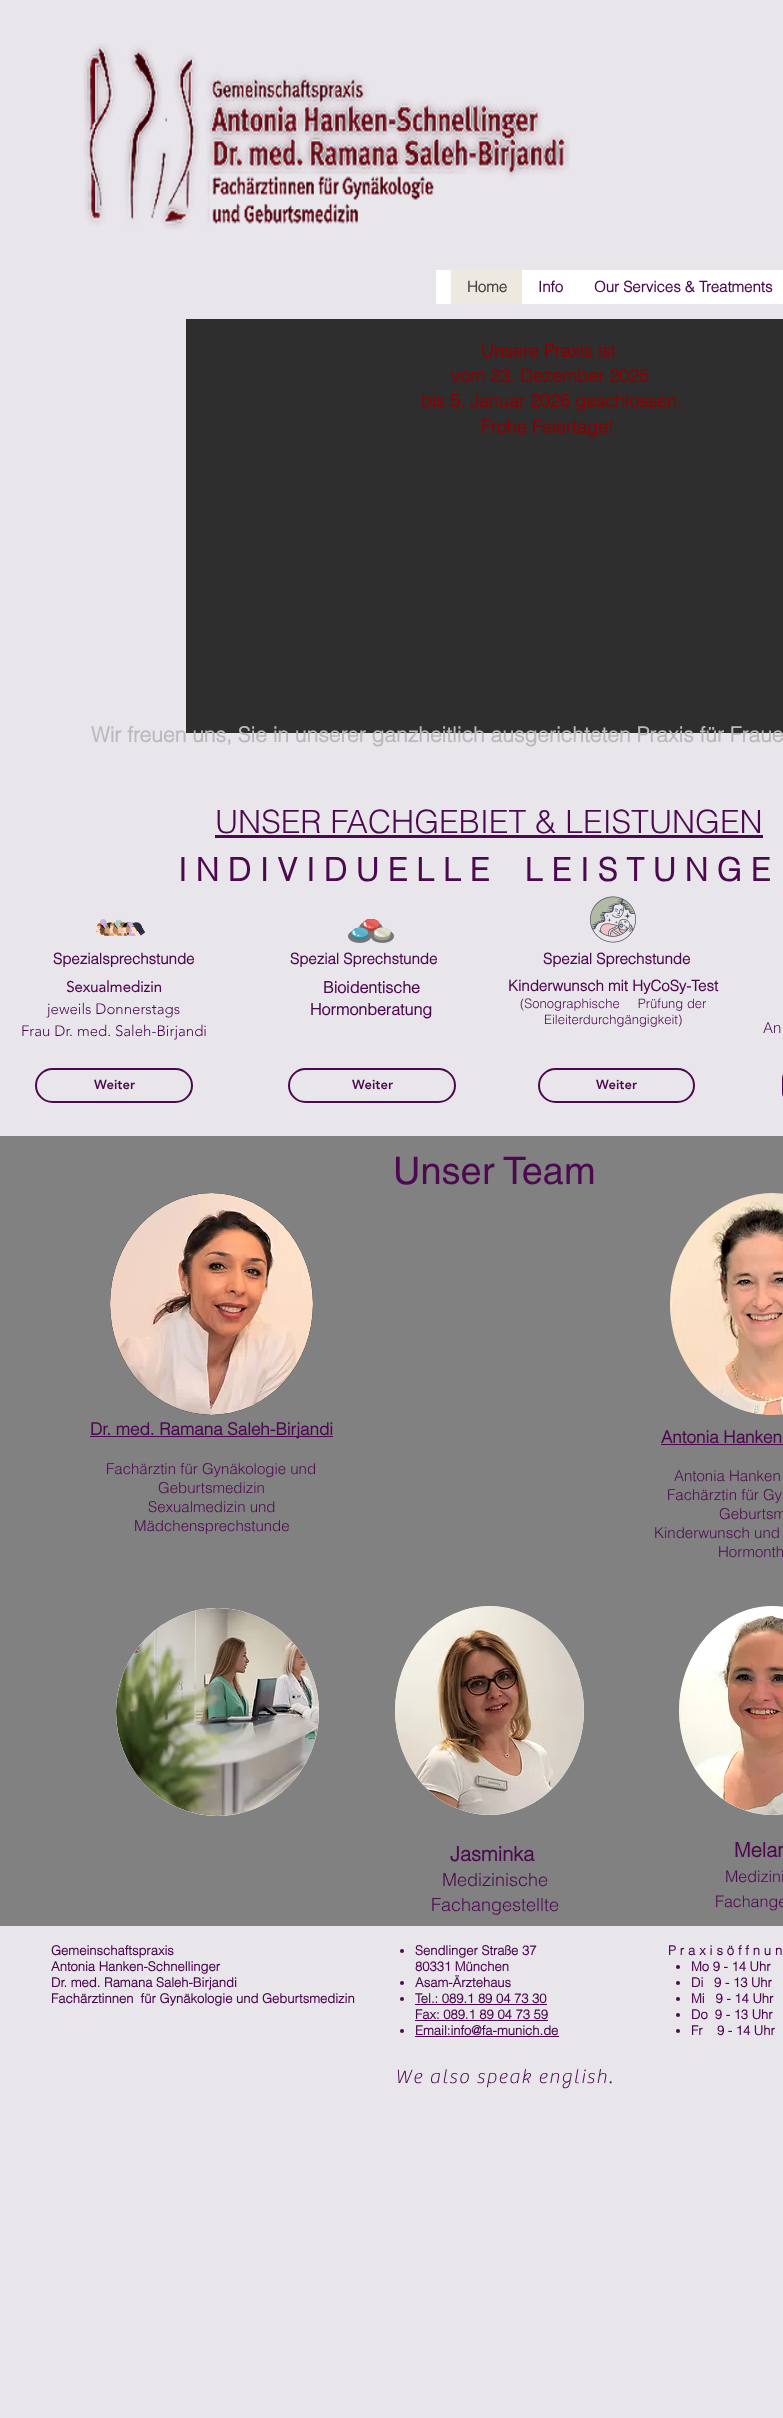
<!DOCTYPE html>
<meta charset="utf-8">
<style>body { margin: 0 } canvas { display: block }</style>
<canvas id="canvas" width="783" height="2418"></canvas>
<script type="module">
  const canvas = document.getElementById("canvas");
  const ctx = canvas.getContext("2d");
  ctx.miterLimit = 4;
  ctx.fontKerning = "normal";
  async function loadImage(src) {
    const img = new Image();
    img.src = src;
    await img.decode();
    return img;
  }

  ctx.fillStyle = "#e9e6eb";
  ctx.fillRect(0, 0, 783, 2418);
  ctx.drawImage(await loadImage("img1.png"), 83, 43, 487, 187);
  ctx.fillStyle = "#ffffff";
  ctx.fillRect(436, 270, 347, 34);
  ctx.fillStyle = "#ede9e1";
  ctx.fillRect(451, 270, 71, 34);
  ctx.font = "bold 15px helvetica";
  ctx.fillStyle = "#444444";
  ctx.fillText("Home", 467, 292);
  ctx.fillStyle = "#4d094f";
  ctx.fillText("Info", 538, 292);
  ctx.fillText("Our Services & Treatments", 594, 292);
  ctx.fillStyle = "#2f2e2e";
  ctx.fillRect(186, 319, 597, 414);
  ctx.font = "bold 18px helvetica";
  ctx.fillStyle = "#8b0000";
  ctx.fillText("Unsere Praxis ist", 481, 357);
  ctx.fillText("vom 23. Dezember 2025", 451, 382);
  ctx.fillText("bis 5. Januar 2026 geschlossen.", 421, 407);
  ctx.fillText("Frohe Feiertage!", 481, 433);
  ctx.font = "bold 21px helvetica";
  ctx.fillStyle = "#bab8bb";
  ctx.fillText("Wir freuen uns, Sie in unserer ganzheitlich ausgerichteten Praxis für Fraue", 91, 742);
  ctx.font = "300 32px helvetica";
  ctx.fillStyle = "#4d094f";
  ctx.fillText("UNSER FACHGEBIET & LEISTUNGEN", 215, 833);
  ctx.fillRect(215, 835, 548, 3);
  ctx.font = "bold 32px helvetica";
  ctx.fillText("I N D I V I D U E L L E    L E I S T U N G E", 178, 881);
  ctx.drawImage(await loadImage("img2.png"), 96, 919, 49, 17);
  ctx.font = "bold 15px 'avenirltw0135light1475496'";
  ctx.fillText("Sexualmedizin", 66, 992);
  ctx.font = "300 15px 'avenirltw0135light1475496'";
  ctx.fillText("jeweils Donnerstags", 47, 1014);
  ctx.fillText("Frau Dr. med. Saleh-Birjandi", 21, 1036);
  ctx.beginPath();
  ctx.roundRect(36, 1069, 156, 33, 16.5);
  ctx.strokeStyle = "#4d094f";
  ctx.lineWidth = 2;
  ctx.stroke();
  ctx.font = "900 13px 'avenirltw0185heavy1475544'";
  ctx.fillText("Weiter", 94, 1089);
  ctx.drawImage(await loadImage("img3.png"), 348, 919, 46, 24);
  ctx.font = "bold 16px helvetica";
  ctx.fillText("Bioidentische", 323, 993);
  ctx.fillText("Hormonberatung", 310, 1015);
  ctx.beginPath();
  ctx.roundRect(289, 1069, 166, 33, 16.5);
  ctx.stroke();
  ctx.font = "900 13px 'avenirltw0185heavy1475544'";
  ctx.fillText("Weiter", 352, 1089);
  ctx.drawImage(await loadImage("img4.png"), 590, 896, 46, 47);
  ctx.font = "bold 15px helvetica";
  ctx.fillText("Spezial Sprechstunde", 543, 964);
  ctx.fillText("Kinderwunsch mit HyCoSy-Test", 508, 991);
  ctx.font = "300 13px helvetica";
  ctx.fillText("(Sonographische     Prüfung der", 520, 1008);
  ctx.fillText("Eileiterdurchgängigkeit)", 544, 1024);
  ctx.beginPath();
  ctx.roundRect(539, 1069, 155, 33, 16.5);
  ctx.stroke();
  ctx.font = "900 13px 'avenirltw0185heavy1475544'";
  ctx.fillText("Weiter", 596, 1089);
  ctx.font = "300 15px helvetica";
  ctx.fillText("An", 763, 1033);
  ctx.beginPath();
  ctx.roundRect(783, 1069, 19, 33, 16.5);
  ctx.stroke();
  ctx.font = "bold 15px helvetica";
  ctx.fillText("Spezialsprechstunde", 53, 964);
  ctx.fillText("Spezial Sprechstunde", 290, 964);
  ctx.fillStyle = "#818181";
  ctx.fillRect(0, 1136, 783, 790);
  ctx.font = "38px helvetica";
  ctx.fillStyle = "#4d094f";
  ctx.fillText("Unser Team", 393, 1184);
  ctx.fillStyle = "#2a2a2a";
  ctx.beginPath();
  ctx.ellipse(211.5, 1304, 101.5, 111, 0, 0, Math.PI * 2);
  ctx.fill();
  ctx.drawImage(await loadImage("img5.png"), 110, 1193, 203, 222);
  ctx.drawImage(await loadImage("img6.png"), 670, 1193, 113, 222);
  ctx.fillStyle = "#4d094f";
  ctx.fillRect(90, 1436, 243, 1);
  ctx.font = "bold 17px helvetica";
  ctx.fillText("Dr. med. Ramana Saleh-Birjandi", 90, 1435);
  ctx.font = "300 15px helvetica";
  ctx.fillText("Fachärztin für Gynäkologie und", 106, 1474);
  ctx.fillText("Geburtsmedizin", 158, 1493);
  ctx.fillText("Sexualmedizin und", 148, 1512);
  ctx.fillText("Mädchensprechstunde", 134, 1531);
  ctx.font = "bold 17px helvetica";
  ctx.fillText("Antonia Hanken", 661, 1443);
  ctx.fillRect(661, 1444, 122, 1);
  ctx.font = "300 15px helvetica";
  ctx.fillText("Antonia Hanken", 674, 1481);
  ctx.fillText("Fachärztin für Gy", 667, 1500);
  ctx.fillText("Geburtsm", 719, 1519);
  ctx.fillText("Kinderwunsch und", 654, 1538);
  ctx.fillText("Hormonth", 718, 1557);
  ctx.fillStyle = "#ffffff";
  ctx.beginPath();
  ctx.ellipse(217.5, 1712, 101.5, 104, 0, 0, Math.PI * 2);
  ctx.fill();
  ctx.drawImage(await loadImage("img7.png"), 116, 1608, 203, 208);
  ctx.beginPath();
  ctx.ellipse(489.5, 1710.5, 94.5, 104.5, 0, 0, Math.PI * 2);
  ctx.fill();
  ctx.drawImage(await loadImage("img8.png"), 395, 1606, 189, 209);
  ctx.beginPath();
  ctx.ellipse(772, 1710.5, 93, 104.5, 0, 0, Math.PI * 2);
  ctx.fill();
  ctx.drawImage(await loadImage("img9.png"), 679, 1606, 104, 209);
  ctx.font = "bold 20px helvetica";
  ctx.fillStyle = "#4d094f";
  ctx.fillText("Jasminka", 450, 1861);
  ctx.font = "300 18px helvetica";
  ctx.fillText("Medizinische", 442, 1886);
  ctx.fillText("Fachangestellte", 431, 1911);
  ctx.font = "bold 20px helvetica";
  ctx.fillText("Melan", 734, 1857);
  ctx.font = "300 16px helvetica";
  ctx.fillText("Medizini", 725, 1882);
  ctx.fillText("Fachange", 715, 1907);
  ctx.font = "bold 13px helvetica";
  ctx.fillText("Gemeinschaftspraxis", 51, 1955);
  ctx.fillText("Antonia Hanken-Schnellinger", 51, 1971);
  ctx.fillText("Dr. med. Ramana Saleh-Birjandi", 51, 1987);
  ctx.fillText("Fachärztinnen  für Gynäkologie und Geburtsmedizin", 51, 2003);
  ctx.beginPath();
  ctx.arc(402, 1951, 2, 0, Math.PI * 2);
  ctx.fill();
  ctx.fillText("Sendlinger Straße 37", 415, 1955);
  ctx.fillText("80331 München", 415, 1971);
  ctx.beginPath();
  ctx.arc(402, 1983, 2, 0, Math.PI * 2);
  ctx.fill();
  ctx.fillText("Asam-Ärztehaus", 415, 1987);
  ctx.beginPath();
  ctx.arc(402, 1999, 2, 0, Math.PI * 2);
  ctx.fill();
  ctx.fillText("Tel.: 089.1 89 04 73 30", 415, 2003);
  ctx.fillRect(415, 2004, 132, 1);
  ctx.fillText("Fax: 089.1 89 04 73 59", 415, 2019);
  ctx.fillRect(415, 2020, 133, 1);
  ctx.beginPath();
  ctx.arc(402, 2031, 2, 0, Math.PI * 2);
  ctx.fill();
  ctx.fillText("Email:info@fa-munich.de", 415, 2035);
  ctx.fillRect(415, 2036, 144, 1);
  ctx.letterSpacing = "3.9px";
  ctx.fillText("Praxisöffnun", 668, 1955);
  ctx.beginPath();
  ctx.arc(678, 1967, 2, 0, Math.PI * 2);
  ctx.fill();
  ctx.letterSpacing = "0px";
  ctx.fillText("Mo 9 - 14 Uhr", 691, 1971);
  ctx.beginPath();
  ctx.arc(678, 1983, 2, 0, Math.PI * 2);
  ctx.fill();
  ctx.fillText("Di   9 - 13 Uhr", 691, 1987);
  ctx.beginPath();
  ctx.arc(678, 1999, 2, 0, Math.PI * 2);
  ctx.fill();
  ctx.fillText("Mi   9 - 14 Uhr", 691, 2003);
  ctx.beginPath();
  ctx.arc(678, 2015, 2, 0, Math.PI * 2);
  ctx.fill();
  ctx.fillText("Do  9 - 13 Uhr", 691, 2019);
  ctx.beginPath();
  ctx.arc(678, 2031, 2, 0, Math.PI * 2);
  ctx.fill();
  ctx.fillText("Fr    9 - 14 Uhr", 691, 2035);
  ctx.letterSpacing = "1.6px";
  ctx.font = "100 20px 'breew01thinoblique'";
  ctx.fillText("We also speak english.", 395, 2083);
</script>
